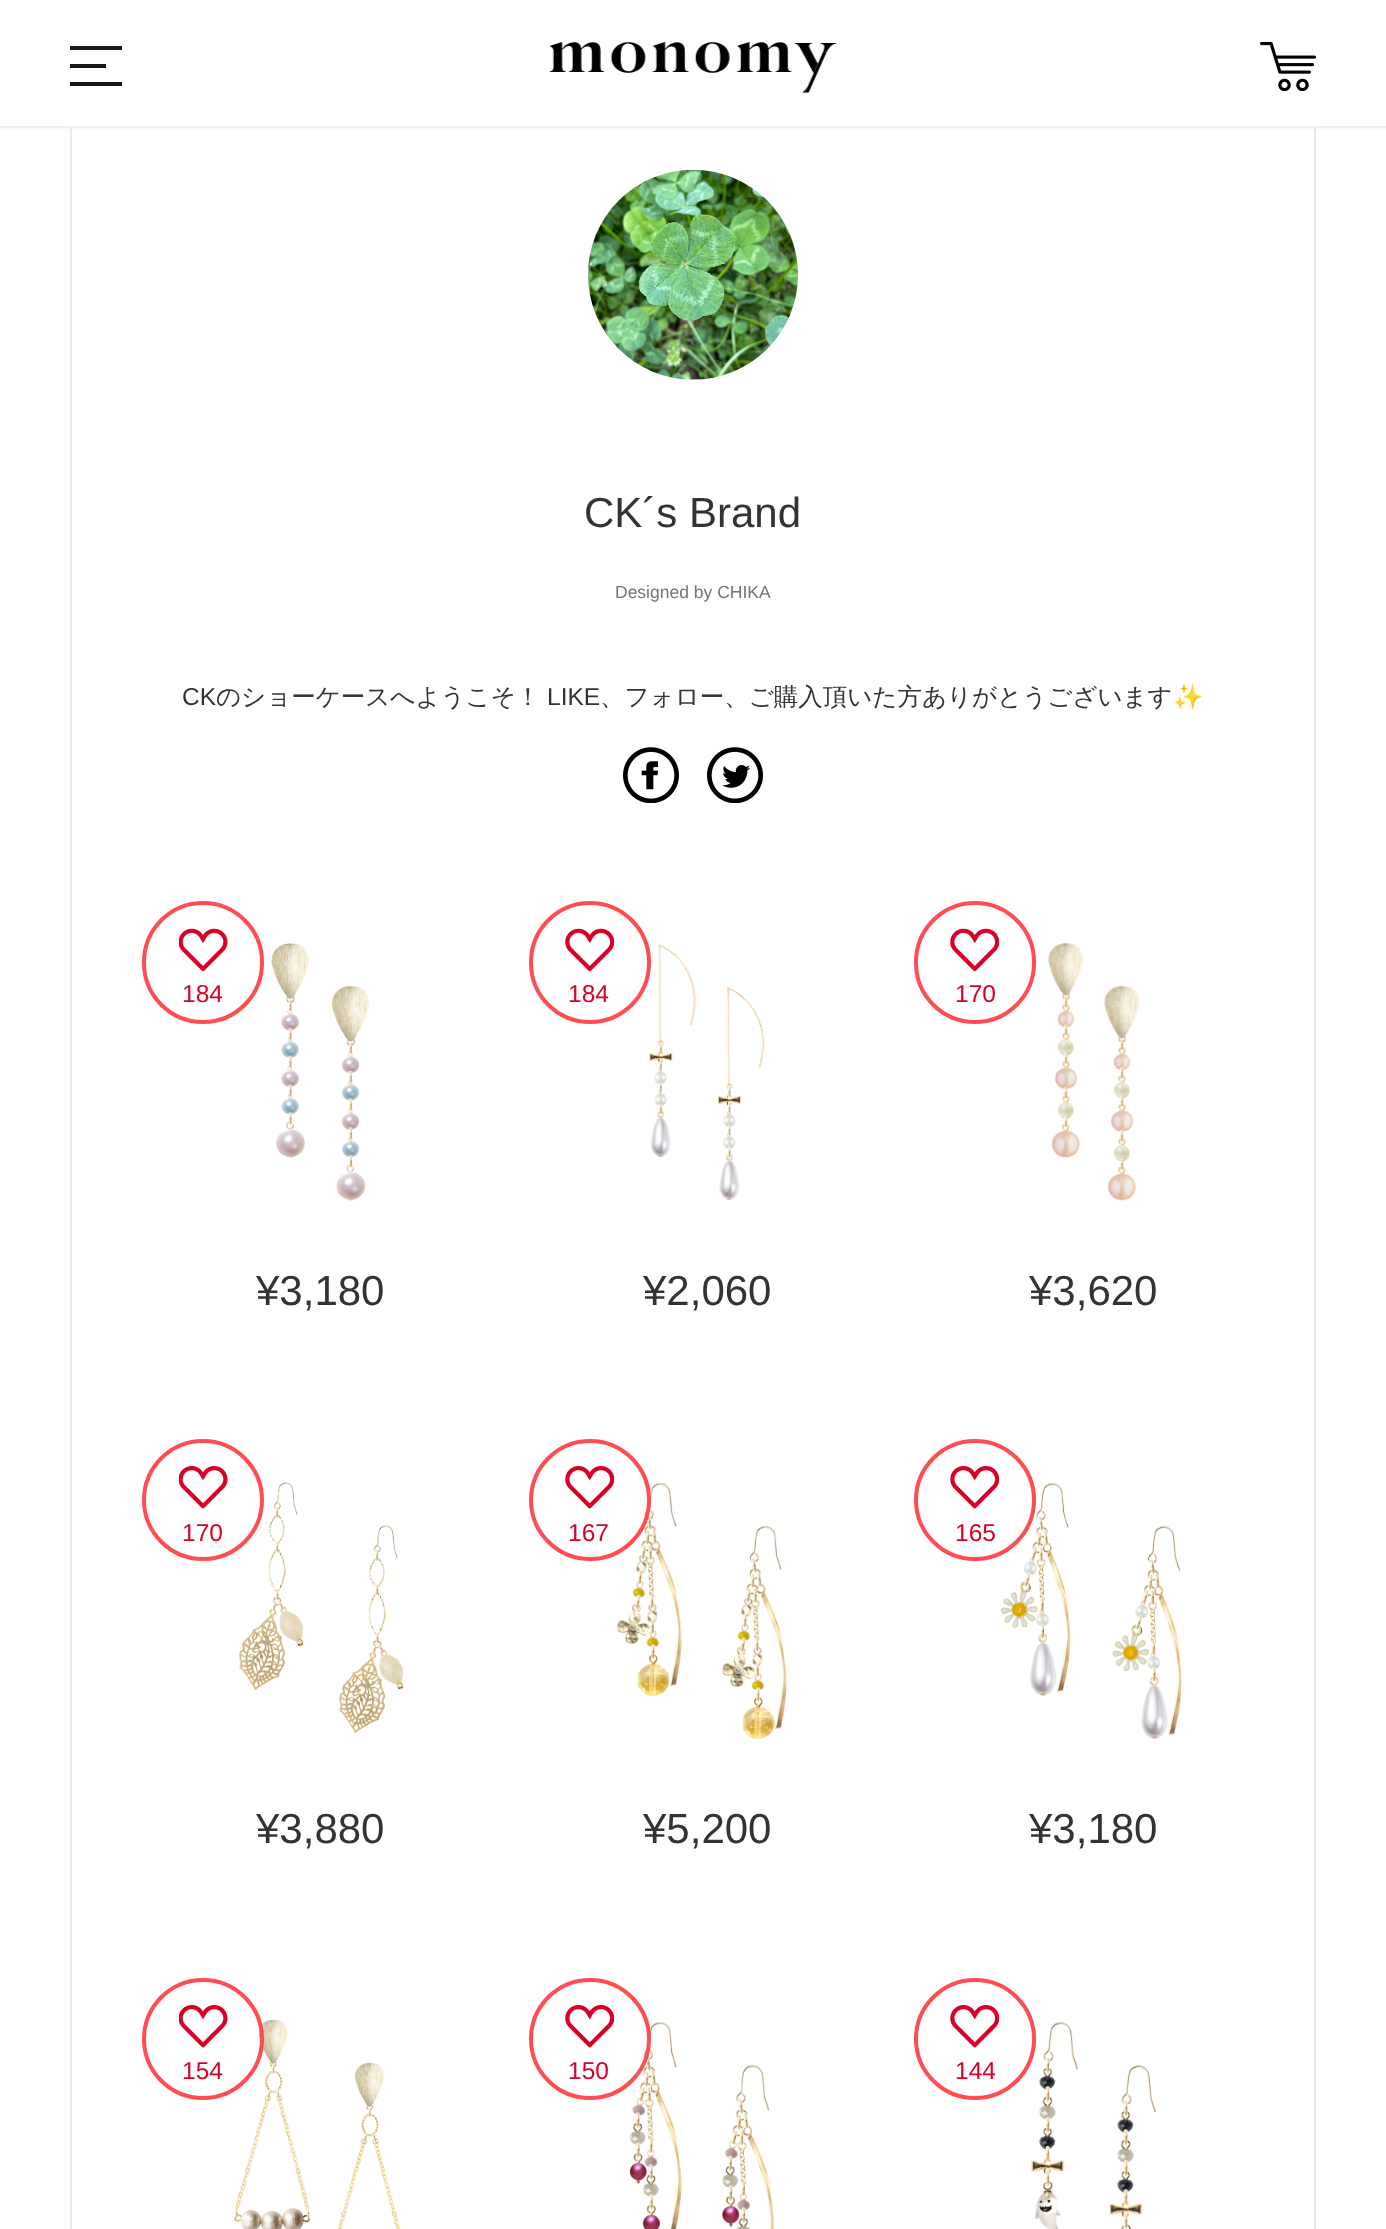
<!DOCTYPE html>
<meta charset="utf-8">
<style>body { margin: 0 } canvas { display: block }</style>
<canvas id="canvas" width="1386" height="2229"></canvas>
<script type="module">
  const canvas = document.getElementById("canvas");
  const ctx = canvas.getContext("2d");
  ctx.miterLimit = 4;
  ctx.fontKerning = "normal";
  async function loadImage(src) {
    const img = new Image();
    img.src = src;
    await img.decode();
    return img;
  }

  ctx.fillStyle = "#ffffff";
  ctx.fillRect(0, 0, 1386, 2229);
  ctx.strokeStyle = "#eaeaea";
  ctx.lineWidth = 2;
  ctx.strokeRect(71, 127, 1244, 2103);
  ctx.save();
  ctx.beginPath();
  ctx.rect(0, 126, 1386, 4);
  ctx.clip();
  ctx.fillStyle = "#eeeeee";
  ctx.filter = "blur(1px)";
  ctx.beginPath();
  ctx.rect(-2, -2, 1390, 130);
  ctx.fill();
  ctx.filter = "none";
  ctx.restore();
  ctx.save();
  ctx.beginPath();
  ctx.rect(70, 46, 53, 40);
  ctx.clip();
  ctx.fillStyle = "#181818";
  ctx.beginPath();
  ctx.moveTo(70, 87);
  ctx.lineTo(70, 82);
  ctx.lineTo(122, 82);
  ctx.lineTo(122, 87);
  ctx.closePath();
  ctx.moveTo(70, 68);
  ctx.lineTo(70, 64);
  ctx.lineTo(106, 64);
  ctx.lineTo(106, 68);
  ctx.closePath();
  ctx.moveTo(70, 50);
  ctx.lineTo(70, 46);
  ctx.lineTo(122, 46);
  ctx.lineTo(122, 50);
  ctx.closePath();
  ctx.fill();
  ctx.restore();
  ctx.drawImage(await loadImage("img1.png"), 549, 42, 288, 51);
  ctx.drawImage(await loadImage("img2.png"), 1260, 42, 56, 49);
  ctx.drawImage(await loadImage("img3.png"), 588, 169, 210, 211);
  ctx.font = "42px Liberation Sans";
  ctx.fillStyle = "#333333";
  ctx.fillText("CK´s Brand", 584, 527);
  ctx.font = "17.5px Liberation Sans";
  ctx.fillStyle = "#747474";
  ctx.fillText("Designed by CHIKA", 615, 598);
  ctx.font = "24.5px Liberation Sans";
  ctx.fillStyle = "#333333";
  ctx.fillText("CK", 182, 705);
  ctx.font = "500 24.5px WenQuanYi Zen Hei";
  ctx.fillText("のショーケースへようこそ！", 216, 705);
  ctx.font = "24.5px Liberation Sans";
  ctx.fillText("LIKE", 547, 705);
  ctx.font = "500 24.5px WenQuanYi Zen Hei";
  ctx.fillText("、フォロー、ご購入頂いた方ありがとうございます", 600, 705);
  ctx.font = "24.5px Noto Color Emoji";
  ctx.fillText("✨", 1173, 705);
  ctx.drawImage(await loadImage("img4.png"), 623, 747, 56, 56);
  ctx.drawImage(await loadImage("img5.png"), 707, 747, 56, 56);
  ctx.beginPath();
  ctx.roundRect(144, 903, 118, 119, 59);
  ctx.strokeStyle = "#ff4d52";
  ctx.lineWidth = 4;
  ctx.stroke();
  ctx.drawImage(await loadImage("img6.png"), 179, 928, 49, 44);
  ctx.font = "24.5px Liberation Sans";
  ctx.fillStyle = "#d80027";
  ctx.fillText("184", 182, 1002);
  ctx.drawImage(await loadImage("img7.png"), 271, 943, 98, 258);
  ctx.font = "42px Liberation Sans";
  ctx.fillStyle = "#333333";
  ctx.fillText("¥3,180", 256, 1305);
  ctx.drawImage(await loadImage("img9.png"), 649, 943, 116, 258);
  ctx.beginPath();
  ctx.roundRect(531, 903, 118, 119, 59);
  ctx.stroke();
  ctx.drawImage(await loadImage("img8.png"), 565, 928, 49, 44);
  ctx.font = "24.5px Liberation Sans";
  ctx.fillStyle = "#d80027";
  ctx.fillText("184", 568, 1002);
  ctx.font = "42px Liberation Sans";
  ctx.fillStyle = "#333333";
  ctx.fillText("¥2,060", 643, 1305);
  ctx.beginPath();
  ctx.roundRect(916, 903, 118, 119, 59);
  ctx.stroke();
  ctx.drawImage(await loadImage("img8.png"), 950, 928, 49, 44);
  ctx.font = "24.5px Liberation Sans";
  ctx.fillStyle = "#d80027";
  ctx.fillText("170", 955, 1002);
  ctx.drawImage(await loadImage("img10.png"), 1048, 943, 92, 258);
  ctx.font = "42px Liberation Sans";
  ctx.fillStyle = "#333333";
  ctx.fillText("¥3,620", 1029, 1305);
  ctx.drawImage(await loadImage("img12.png"), 239, 1482, 165, 252);
  ctx.beginPath();
  ctx.arc(203, 1500, 59, 0, Math.PI * 2);
  ctx.stroke();
  ctx.drawImage(await loadImage("img11.png"), 179, 1466, 49, 43);
  ctx.font = "24.5px Liberation Sans";
  ctx.fillStyle = "#d80027";
  ctx.fillText("170", 182, 1541);
  ctx.font = "42px Liberation Sans";
  ctx.fillStyle = "#333333";
  ctx.fillText("¥3,880", 256, 1843);
  ctx.drawImage(await loadImage("img14.png"), 617, 1483, 170, 257);
  ctx.beginPath();
  ctx.arc(590, 1500, 59, 0, Math.PI * 2);
  ctx.stroke();
  ctx.drawImage(await loadImage("img13.png"), 565, 1466, 49, 43);
  ctx.font = "24.5px Liberation Sans";
  ctx.fillStyle = "#d80027";
  ctx.fillText("167", 568, 1541);
  ctx.font = "42px Liberation Sans";
  ctx.fillStyle = "#333333";
  ctx.fillText("¥5,200", 643, 1843);
  ctx.drawImage(await loadImage("img15.png"), 1000, 1483, 182, 257);
  ctx.beginPath();
  ctx.arc(975, 1500, 59, 0, Math.PI * 2);
  ctx.stroke();
  ctx.drawImage(await loadImage("img13.png"), 950, 1466, 49, 43);
  ctx.font = "24.5px Liberation Sans";
  ctx.fillStyle = "#d80027";
  ctx.fillText("165", 955, 1541);
  ctx.font = "42px Liberation Sans";
  ctx.fillStyle = "#333333";
  ctx.fillText("¥3,180", 1029, 1843);
  ctx.drawImage(await loadImage("img16.png"), 233, 2020, 167, 209);
  ctx.beginPath();
  ctx.arc(203, 2039, 59, 0, Math.PI * 2);
  ctx.stroke();
  ctx.drawImage(await loadImage("img11.png"), 179, 2005, 49, 43);
  ctx.font = "24.5px Liberation Sans";
  ctx.fillStyle = "#d80027";
  ctx.fillText("154", 182, 2079);
  ctx.drawImage(await loadImage("img17.png"), 629, 2022, 145, 207);
  ctx.beginPath();
  ctx.arc(590, 2039, 59, 0, Math.PI * 2);
  ctx.stroke();
  ctx.drawImage(await loadImage("img13.png"), 565, 2005, 49, 43);
  ctx.fillText("150", 568, 2079);
  ctx.drawImage(await loadImage("img18.png"), 1031, 2022, 126, 207);
  ctx.beginPath();
  ctx.arc(975, 2039, 59, 0, Math.PI * 2);
  ctx.stroke();
  ctx.drawImage(await loadImage("img13.png"), 950, 2005, 49, 43);
  ctx.fillText("144", 955, 2079);
</script>
